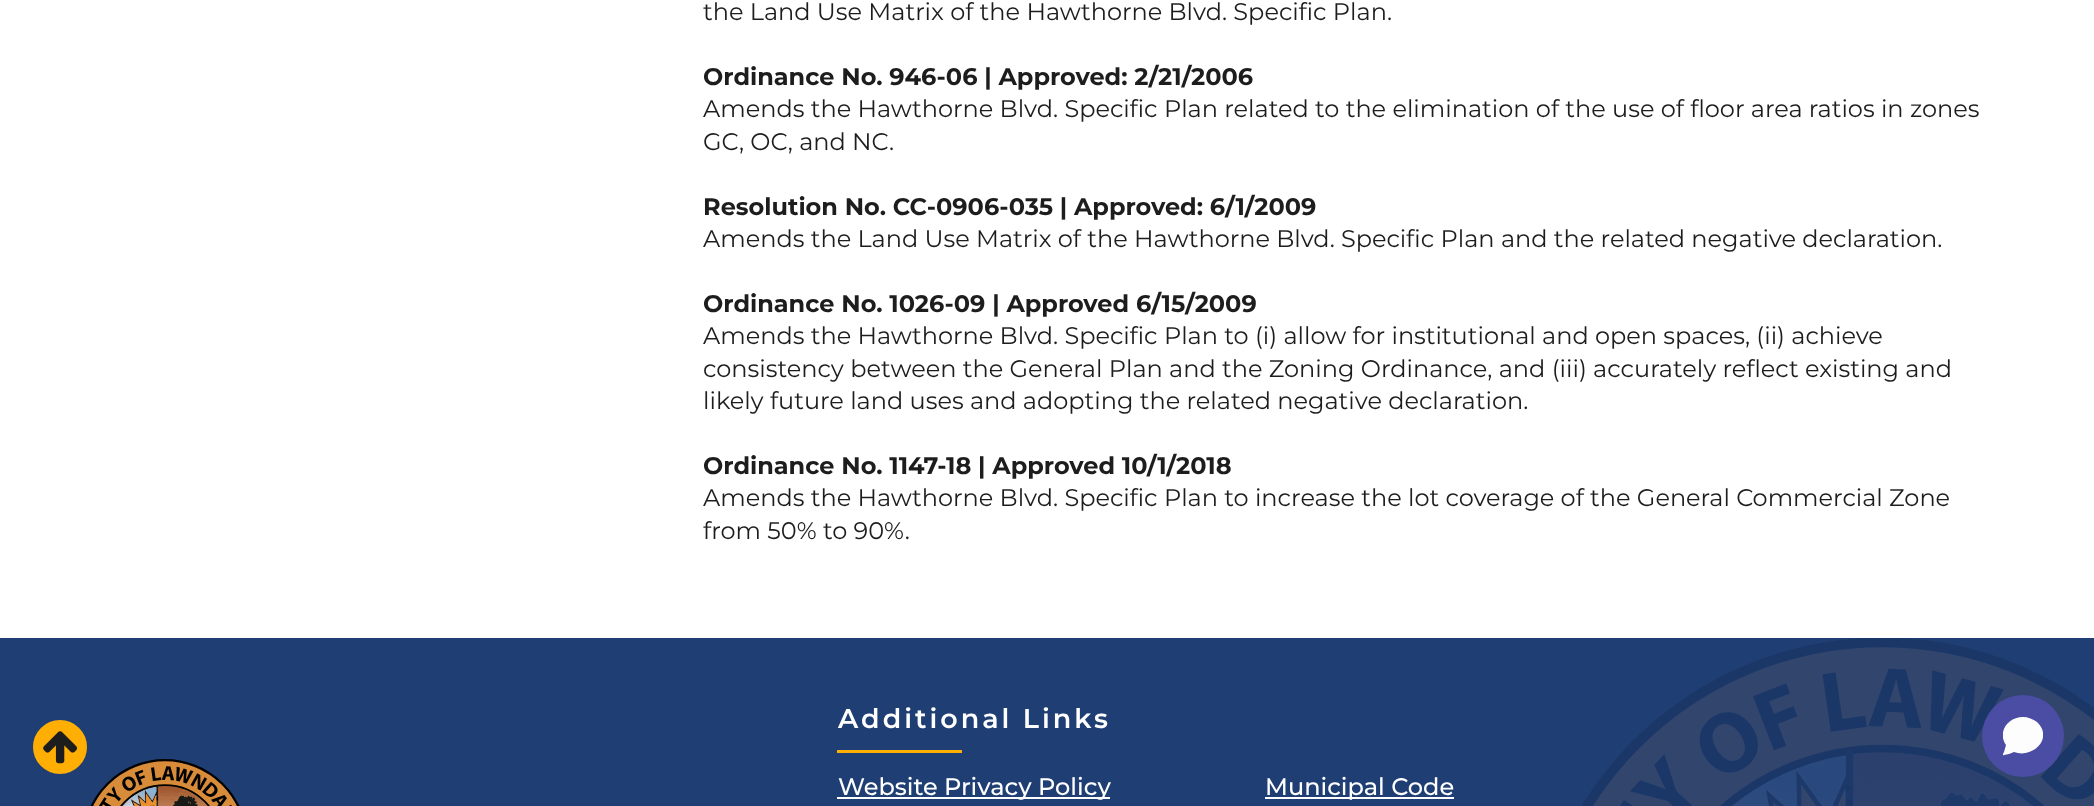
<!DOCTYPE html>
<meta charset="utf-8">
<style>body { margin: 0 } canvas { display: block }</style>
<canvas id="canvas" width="2094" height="806"></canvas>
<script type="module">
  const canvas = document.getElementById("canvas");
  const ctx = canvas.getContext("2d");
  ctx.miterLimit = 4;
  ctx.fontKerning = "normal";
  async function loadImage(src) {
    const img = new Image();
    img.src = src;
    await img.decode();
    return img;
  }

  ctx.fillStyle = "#ffffff";
  ctx.fillRect(0, 0, 2094, 806);
  ctx.font = "24px Montserrat";
  ctx.fillStyle = "#1d1d1d";
  ctx.fillText("the Land Use Matrix of the Hawthorne Blvd. Specific Plan.", 703, 20);
  ctx.font = "bold 24px Montserrat";
  ctx.fillText("Ordinance No. 946-06 | Approved: 2/21/2006", 703, 85);
  ctx.font = "24px Montserrat";
  ctx.fillText("Amends the Hawthorne Blvd. Specific Plan related to the elimination of the use of floor area ratios in zones", 703, 117);
  ctx.fillText("GC, OC, and NC.", 703, 150);
  ctx.font = "bold 24px Montserrat";
  ctx.fillText("Resolution No. CC-0906-035 | Approved: 6/1/2009", 703, 215);
  ctx.font = "24px Montserrat";
  ctx.fillText("Amends the Land Use Matrix of the Hawthorne Blvd. Specific Plan and the related negative declaration.", 703, 247);
  ctx.font = "bold 24px Montserrat";
  ctx.fillText("Ordinance No. 1026-09 | Approved 6/15/2009", 703, 312);
  ctx.font = "24px Montserrat";
  ctx.fillText("Amends the Hawthorne Blvd. Specific Plan to (i) allow for institutional and open spaces, (ii) achieve", 703, 344);
  ctx.fillText("consistency between the General Plan and the Zoning Ordinance, and (iii) accurately reflect existing and", 703, 377);
  ctx.fillText("likely future land uses and adopting the related negative declaration.", 703, 409);
  ctx.font = "bold 24px Montserrat";
  ctx.fillText("Ordinance No. 1147-18 | Approved 10/1/2018", 703, 474);
  ctx.font = "24px Montserrat";
  ctx.fillText("Amends the Hawthorne Blvd. Specific Plan to increase the lot coverage of the General Commercial Zone", 703, 506);
  ctx.fillText("from 50% to 90%.", 703, 539);
  ctx.fillStyle = "#1f3e74";
  ctx.fillRect(0, 638, 2094, 168);
  ctx.fillStyle = "#ffae03";
  ctx.beginPath();
  ctx.arc(60, 747, 28.5, 0, Math.PI * 2);
  ctx.fill();
  ctx.strokeStyle = "#1f3e74";
  ctx.lineWidth = 3;
  ctx.stroke();
  ctx.drawImage(await loadImage("img1.png"), 43, 731, 34, 33);
  ctx.drawImage(await loadImage("img2.png"), 90, 759, 150, 47);
  ctx.letterSpacing = "3px";
  ctx.font = "600 27px Montserrat";
  ctx.fillStyle = "#ffffff";
  ctx.fillText("Additional Links", 838, 728);
  ctx.fillStyle = "#ffae03";
  ctx.fillRect(837, 750, 125, 3);
  ctx.fillStyle = "#ffffff";
  ctx.fillRect(837, 797, 273, 2);
  ctx.letterSpacing = "0px";
  ctx.font = "500 24px Montserrat";
  ctx.fillText("Website Privacy Policy", 838, 795);
  ctx.fillRect(1265, 797, 189, 2);
  ctx.fillText("Municipal Code", 1265, 795);
  ctx.drawImage(await loadImage("img3.png"), 1582, 638, 512, 168);
  ctx.fillStyle = "#4b4da4";
  ctx.beginPath();
  ctx.arc(2023, 736, 41, 0, Math.PI * 2);
  ctx.fill();
  ctx.save();
  ctx.beginPath();
  ctx.rect(2003, 716, 40, 40);
  ctx.clip();
  ctx.fillStyle = "#fefdfd";
  ctx.beginPath();
  ctx.moveTo(2023, 717);
  ctx.bezierCurveTo(2008, 717, 1997, 732, 2006, 745);
  ctx.lineTo(2004, 752);
  ctx.bezierCurveTo(2003, 754, 2001, 756, 2004, 755);
  ctx.lineTo(2009, 754);
  ctx.lineTo(2014, 752);
  ctx.bezierCurveTo(2033, 759, 2054, 738, 2037, 722);
  ctx.bezierCurveTo(2033, 719, 2028, 717, 2023, 717);
  ctx.closePath();
  ctx.fill();
  ctx.restore();
</script>
